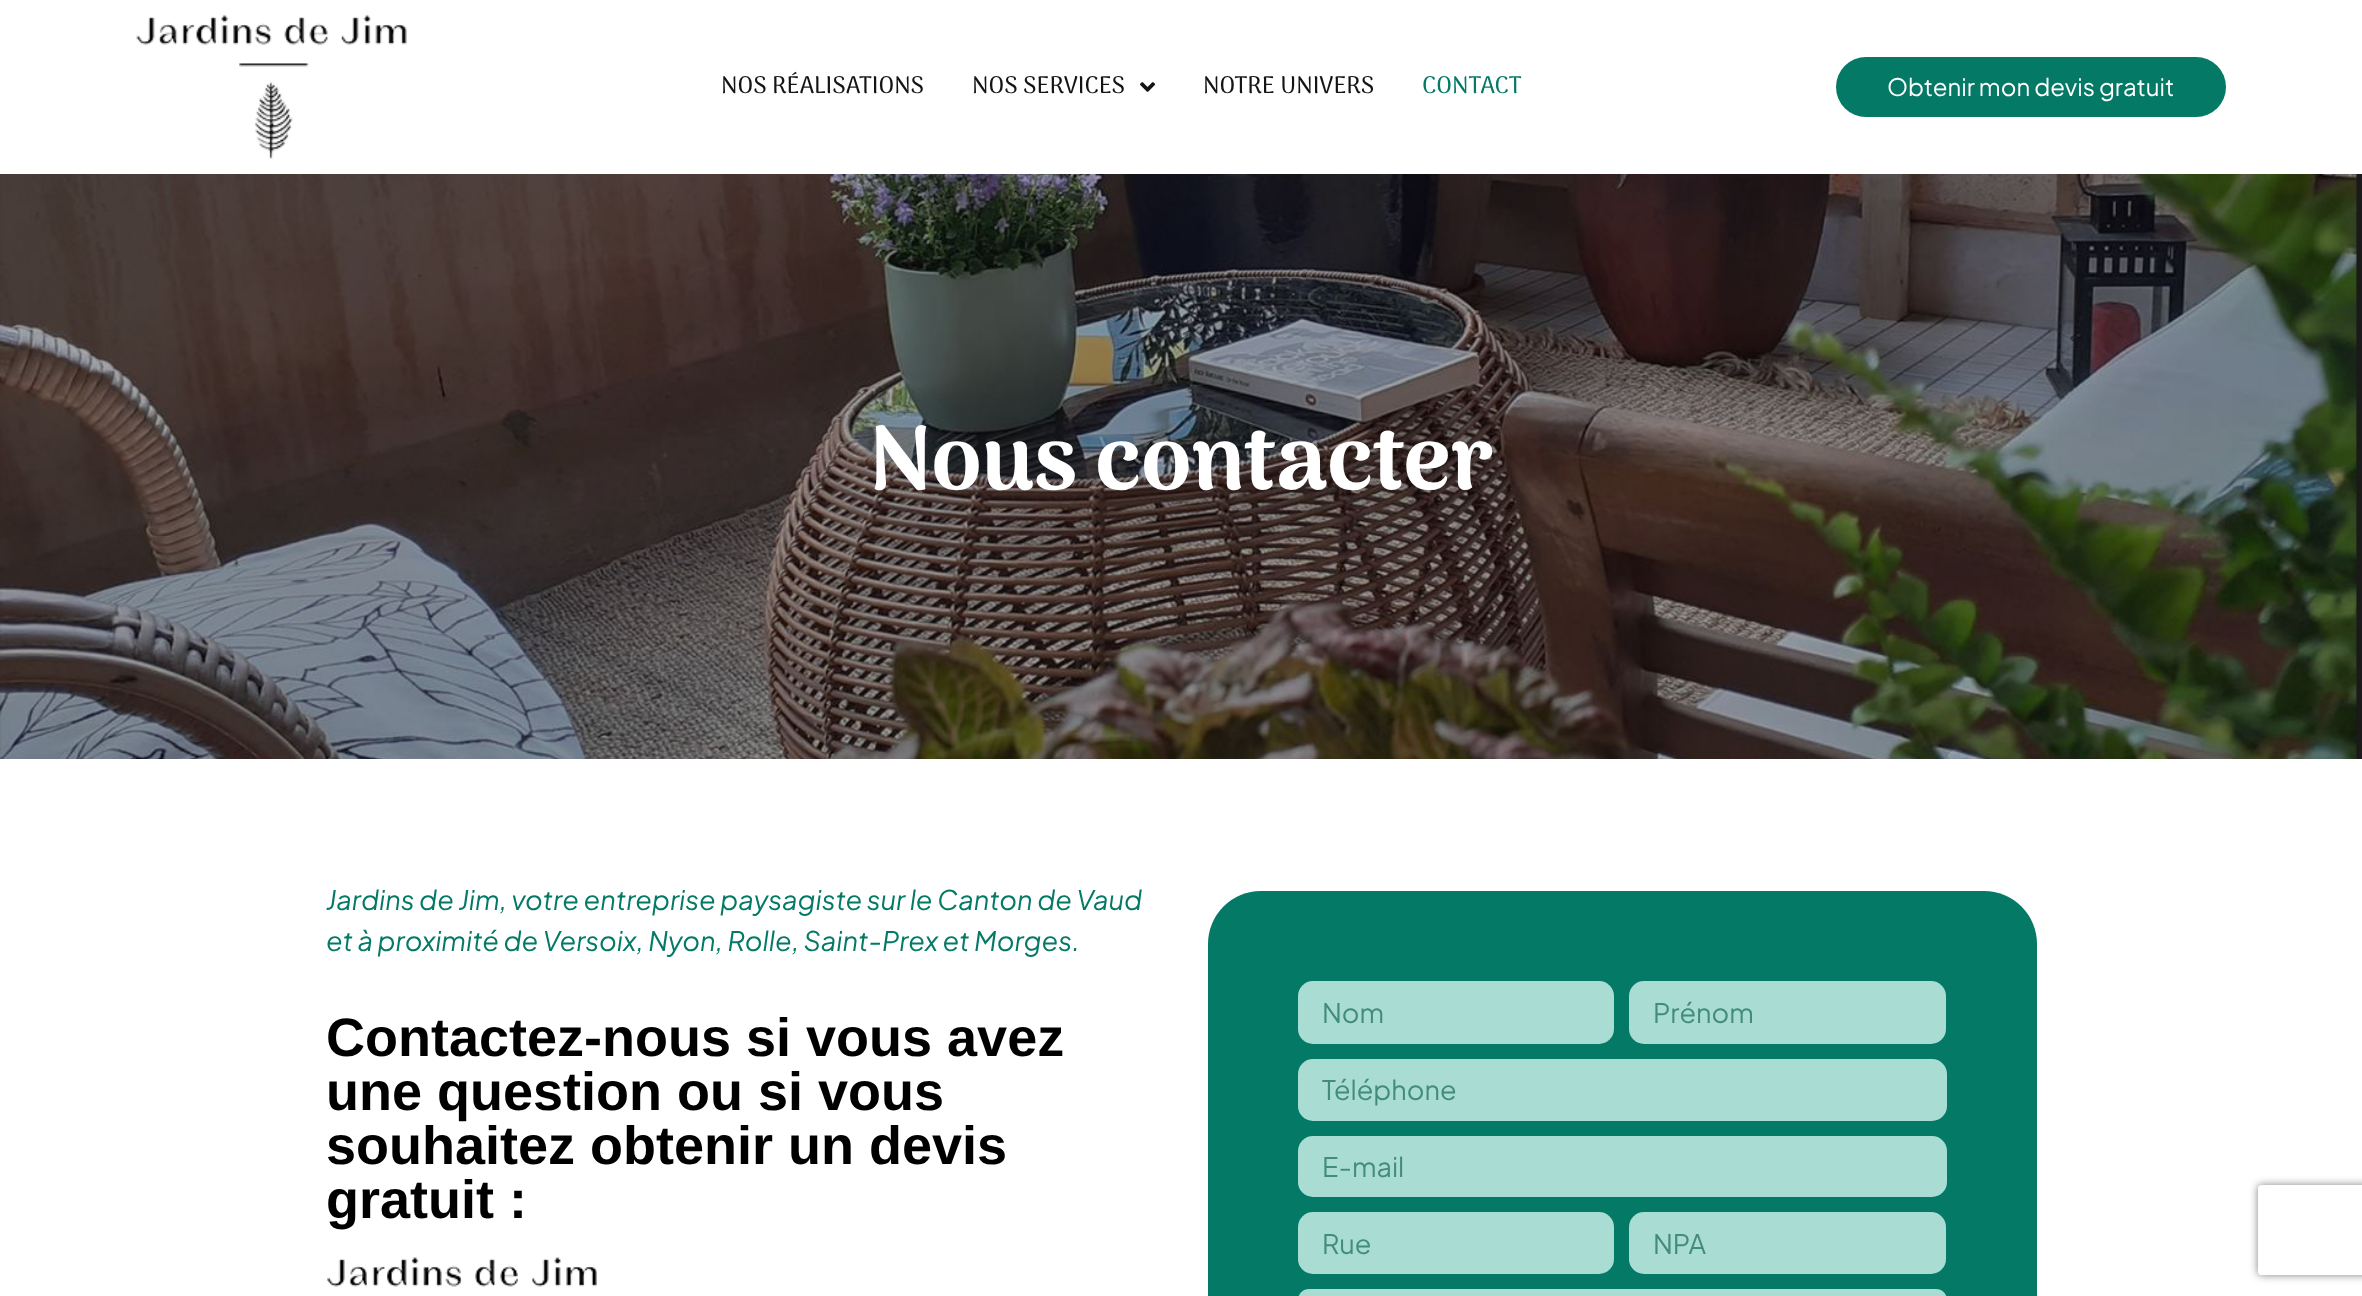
<!DOCTYPE html>
<meta charset="utf-8">
<style>body { margin: 0 } canvas { display: block }</style>
<canvas id="canvas" width="2362" height="1296"></canvas>
<script type="module">
  const canvas = document.getElementById("canvas");
  const ctx = canvas.getContext("2d");
  ctx.miterLimit = 4;
  ctx.fontKerning = "normal";
  async function loadImage(src) {
    const img = new Image();
    img.src = src;
    await img.decode();
    return img;
  }

  ctx.fillStyle = "#ffffff";
  ctx.fillRect(0, 0, 2362, 1296);
  ctx.drawImage(await loadImage("img1.png"), 136, 15, 271, 144);
  ctx.font = "500 24px Arima";
  ctx.fillStyle = "#141414";
  ctx.fillText("NOS RÉALISATIONS", 721, 93);
  ctx.fillText("NOS SERVICES", 972, 93);
  ctx.drawImage(await loadImage("img2.png"), 1140, 82, 15, 10);
  ctx.fillText("NOTRE UNIVERS", 1203, 93);
  ctx.fillStyle = "#037966";
  ctx.fillText("CONTACT", 1422, 93);
  ctx.beginPath();
  ctx.roundRect(1836, 57, 390, 60, 30);
  ctx.fill();
  ctx.font = "24px Plus Jakarta Sans";
  ctx.fillStyle = "#ffffff";
  ctx.fillText("Obtenir mon devis gratuit", 1887, 96);
  ctx.drawImage(await loadImage("img3.png"), 0, 174, 2362, 585);
  ctx.font = "bold 90px Arima";
  ctx.fillText("Nous contacter", 869, 489);
  ctx.font = "italic 27px Plus Jakarta Sans";
  ctx.fillStyle = "#037966";
  ctx.fillText("Jardins de Jim, votre entreprise paysagiste sur le Canton de Vaud", 326, 910);
  ctx.fillText("et à proximité de Versoix, Nyon, Rolle, Saint-Prex et Morges.", 326, 951);
  ctx.font = "bold 54px Liberation Sans";
  ctx.fillStyle = "#000000";
  ctx.fillText("Contactez-nous si vous avez", 326, 1056);
  ctx.fillText("une question ou si vous", 326, 1110);
  ctx.fillText("souhaitez obtenir un devis", 326, 1164);
  ctx.fillText("gratuit :", 326, 1218);
  ctx.drawImage(await loadImage("img4.png"), 327, 1257, 270, 30);
  ctx.fillStyle = "#037966";
  ctx.beginPath();
  ctx.roundRect(1208, 891, 829, 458, 53);
  ctx.fill();
  ctx.fillStyle = "#a9ddd4";
  ctx.beginPath();
  ctx.roundRect(1298, 981, 316, 63, 15);
  ctx.fill();
  ctx.font = "27px Plus Jakarta Sans";
  ctx.fillStyle = "#448b7f";
  ctx.fillText("Nom", 1322, 1023);
  ctx.fillStyle = "#a9ddd4";
  ctx.beginPath();
  ctx.roundRect(1629, 981, 317, 63, 15);
  ctx.fill();
  ctx.fillStyle = "#448b7f";
  ctx.fillText("Prénom", 1653, 1023);
  ctx.fillStyle = "#a9ddd4";
  ctx.beginPath();
  ctx.roundRect(1298, 1059, 649, 62, 15);
  ctx.fill();
  ctx.fillStyle = "#448b7f";
  ctx.fillText("Téléphone", 1322, 1100);
  ctx.fillStyle = "#a9ddd4";
  ctx.beginPath();
  ctx.roundRect(1298, 1136, 649, 61, 15);
  ctx.fill();
  ctx.fillStyle = "#448b7f";
  ctx.fillText("E-mail", 1322, 1177);
  ctx.fillStyle = "#a9ddd4";
  ctx.beginPath();
  ctx.roundRect(1298, 1212, 316, 62, 15);
  ctx.fill();
  ctx.fillStyle = "#448b7f";
  ctx.fillText("Rue", 1322, 1254);
  ctx.fillStyle = "#a9ddd4";
  ctx.beginPath();
  ctx.roundRect(1629, 1212, 317, 62, 15);
  ctx.fill();
  ctx.fillStyle = "#448b7f";
  ctx.fillText("NPA", 1653, 1254);
  ctx.save();
  ctx.beginPath();
  ctx.moveTo(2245, 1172);
  ctx.lineTo(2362, 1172);
  ctx.lineTo(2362, 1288);
  ctx.lineTo(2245, 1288);
  ctx.closePath();
  ctx.moveTo(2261, 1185);
  ctx.lineTo(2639, 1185);
  ctx.bezierCurveTo(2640.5, 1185, 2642, 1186.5, 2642, 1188);
  ctx.lineTo(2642, 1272);
  ctx.bezierCurveTo(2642, 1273.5, 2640.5, 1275, 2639, 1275);
  ctx.lineTo(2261, 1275);
  ctx.bezierCurveTo(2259.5, 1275, 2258, 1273.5, 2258, 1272);
  ctx.lineTo(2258, 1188);
  ctx.bezierCurveTo(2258, 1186.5, 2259.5, 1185, 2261, 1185);
  ctx.closePath();
  ctx.clip("evenodd");
  ctx.fillStyle = "#808080";
  ctx.filter = "blur(4px)";
  ctx.beginPath();
  ctx.roundRect(2258, 1185, 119, 90, 3);
  ctx.fill();
  ctx.filter = "none";
  ctx.restore();
  ctx.fillStyle = "#a9ddd4";
  ctx.beginPath();
  ctx.roundRect(1298, 1289, 649, 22, 15);
  ctx.fill();
</script>
